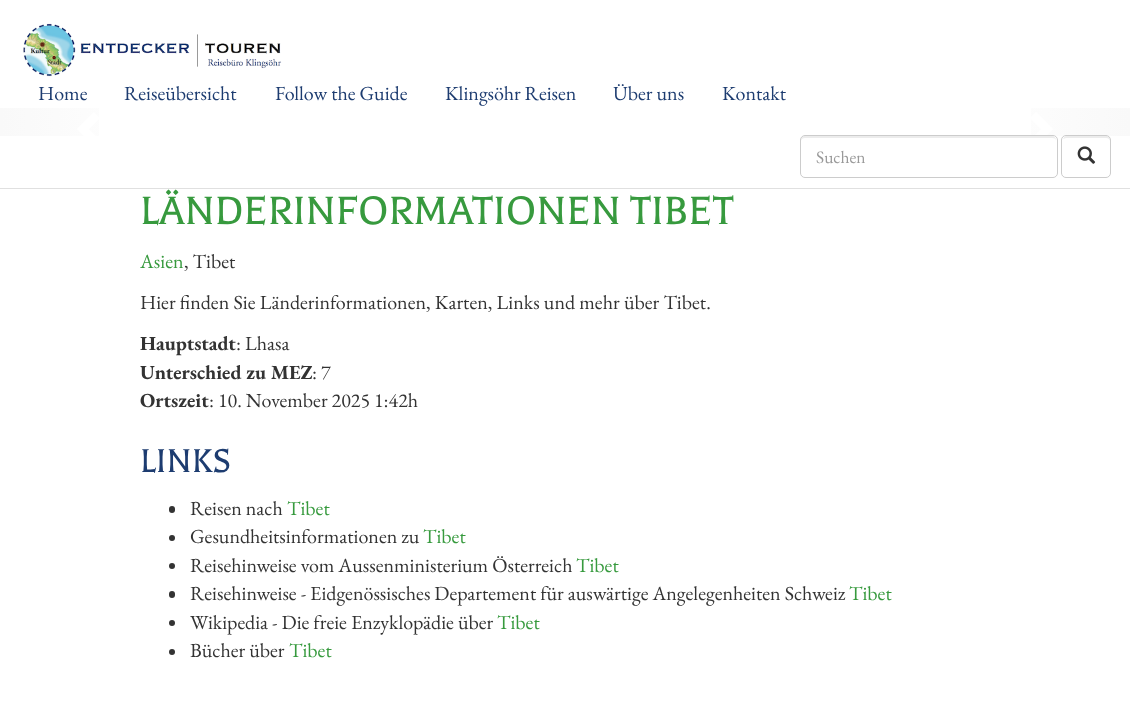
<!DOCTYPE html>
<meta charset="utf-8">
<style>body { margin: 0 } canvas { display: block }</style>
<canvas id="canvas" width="1130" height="717"></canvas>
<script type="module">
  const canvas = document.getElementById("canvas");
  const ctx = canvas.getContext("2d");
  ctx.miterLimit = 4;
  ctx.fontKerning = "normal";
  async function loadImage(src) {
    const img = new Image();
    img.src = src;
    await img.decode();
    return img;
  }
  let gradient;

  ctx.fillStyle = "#ffffff";
  ctx.fillRect(0, 0, 1130, 717);
  ctx.fillStyle = "#e0e0e0";
  ctx.fillRect(0, 188, 1130, 1);
  ctx.drawImage(await loadImage("img1.png"), 23, 23, 259, 54);
  ctx.font = "20px EB Garamond";
  ctx.fillStyle = "#1d3c70";
  ctx.fillText("Home", 38, 100);
  ctx.fillText("Reiseübersicht", 124, 100);
  ctx.fillText("Follow the Guide", 275, 100);
  ctx.fillText("Klingsöhr Reisen", 445, 100);
  ctx.fillText("Über uns", 613, 100);
  ctx.fillText("Kontakt", 722, 100);
  gradient = ctx.createLinearGradient(960, 122, 1130, 122);
  gradient.addColorStop(0, "#ffffff");
  gradient.addColorStop(1, "#f9f9f9");
  ctx.fillStyle = gradient;
  ctx.fillRect(1031, 108, 99, 28);
  ctx.fillStyle = "#ffffff";
  ctx.beginPath();
  ctx.moveTo(1053, 129);
  ctx.lineTo(1036, 146.5);
  ctx.lineTo(1030, 140);
  ctx.lineTo(1041, 129);
  ctx.lineTo(1030, 118);
  ctx.lineTo(1036, 112);
  ctx.closePath();
  ctx.fill();
  ctx.beginPath();
  ctx.roundRect(800, 135, 258, 43, 5);
  ctx.fill();
  ctx.fillStyle = "#ececec";
  ctx.beginPath();
  ctx.moveTo(805, 138);
  ctx.lineTo(1052, 138);
  ctx.bezierCurveTo(1055, 138, 1056, 139, 1056, 141);
  ctx.lineTo(1056, 140);
  ctx.bezierCurveTo(1056, 138, 1054, 136, 1052, 136);
  ctx.lineTo(805, 136);
  ctx.bezierCurveTo(803, 136, 801, 138, 801, 140);
  ctx.lineTo(801, 141);
  ctx.bezierCurveTo(801, 139, 803, 138, 805, 138);
  ctx.closePath();
  ctx.fill();
  ctx.beginPath();
  ctx.roundRect(800.5, 135.5, 257, 42, 4.5);
  ctx.strokeStyle = "#cccccc";
  ctx.stroke();
  ctx.font = "17.5px EB Garamond";
  ctx.fillStyle = "#999999";
  ctx.fillText("Suchen", 816, 163);
  ctx.fillStyle = "#ffffff";
  ctx.beginPath();
  ctx.roundRect(1061, 135, 50, 43, 5);
  ctx.fill();
  ctx.fillStyle = "#ececec";
  ctx.beginPath();
  ctx.moveTo(1066, 138);
  ctx.lineTo(1106, 138);
  ctx.bezierCurveTo(1108, 138, 1110, 139, 1110, 141);
  ctx.lineTo(1110, 140);
  ctx.bezierCurveTo(1110, 138, 1108, 136, 1106, 136);
  ctx.lineTo(1067, 136);
  ctx.bezierCurveTo(1065, 136, 1064, 137, 1063, 139);
  ctx.closePath();
  ctx.fill();
  ctx.beginPath();
  ctx.roundRect(1061.5, 135.5, 49, 42, 4.5);
  ctx.stroke();
  ctx.drawImage(await loadImage("img2.png"), 1077, 146, 19, 18);
  gradient = ctx.createLinearGradient(0, 122, 170, 122);
  gradient.addColorStop(0, "#f9f9f9");
  gradient.addColorStop(1, "#ffffff");
  ctx.fillStyle = gradient;
  ctx.fillRect(0, 108, 99, 28);
  ctx.fillStyle = "#ffffff";
  ctx.beginPath();
  ctx.moveTo(100, 118);
  ctx.lineTo(89, 129);
  ctx.lineTo(100, 140);
  ctx.lineTo(94, 146.5);
  ctx.lineTo(77, 129);
  ctx.lineTo(94, 112);
  ctx.closePath();
  ctx.fill();
  ctx.font = "45px Balthazar";
  ctx.fillStyle = "#379a3e";
  ctx.fillText("LÄNDERINFORMATIONEN TIBET", 140, 224);
  ctx.font = "20px EB Garamond";
  ctx.fillText("Asien", 140, 268);
  ctx.fillStyle = "#333333";
  ctx.fillText(", Tibet", 184, 268);
  ctx.wordSpacing = "0.25px";
  ctx.fillText("Hier finden Sie Länderinformationen, Karten, Links und mehr über Tibet.", 140, 309);
  ctx.wordSpacing = "0px";
  ctx.font = "bold 20px EB Garamond";
  ctx.fillText("Hauptstadt", 140, 350);
  ctx.font = "20px EB Garamond";
  ctx.fillText(": Lhasa", 236, 350);
  ctx.font = "bold 20px EB Garamond";
  ctx.fillText("Unterschied zu MEZ", 140, 379);
  ctx.font = "20px EB Garamond";
  ctx.fillText(": 7", 312, 379);
  ctx.font = "bold 20px EB Garamond";
  ctx.fillText("Ortszeit", 140, 407);
  ctx.font = "20px EB Garamond";
  ctx.fillText(": 10. November 2025 1:42h", 209, 407);
  ctx.font = "37.5px Balthazar";
  ctx.fillStyle = "#1d3c70";
  ctx.fillText("LINKS", 140, 472);
  ctx.fillStyle = "#333333";
  ctx.beginPath();
  ctx.roundRect(169, 506, 6, 7, 3);
  ctx.fill();
  ctx.font = "20px EB Garamond";
  ctx.fillText("Reisen nach", 190, 515);
  ctx.fillStyle = "#379a3e";
  ctx.fillText("Tibet", 287, 515);
  ctx.fillStyle = "#333333";
  ctx.beginPath();
  ctx.arc(172, 538, 3, 0, Math.PI * 2);
  ctx.fill();
  ctx.fillText("Gesundheitsinformationen zu", 190, 543);
  ctx.fillStyle = "#379a3e";
  ctx.fillText("Tibet", 423, 543);
  ctx.fillStyle = "#333333";
  ctx.beginPath();
  ctx.arc(172, 566, 3, 0, Math.PI * 2);
  ctx.fill();
  ctx.fillText("Reisehinweise vom Aussenministerium Österreich", 190, 572);
  ctx.fillStyle = "#379a3e";
  ctx.fillText("Tibet", 576, 572);
  ctx.fillStyle = "#333333";
  ctx.beginPath();
  ctx.roundRect(169, 591, 6, 7, 3);
  ctx.fill();
  ctx.fillText("Reisehinweise - Eidgenössisches Departement für auswärtige Angelegenheiten Schweiz", 190, 600);
  ctx.fillStyle = "#379a3e";
  ctx.fillText("Tibet", 849, 600);
  ctx.fillStyle = "#333333";
  ctx.beginPath();
  ctx.arc(172, 623, 3, 0, Math.PI * 2);
  ctx.fill();
  ctx.fillText("Wikipedia - Die freie Enzyklopädie über", 190, 629);
  ctx.fillStyle = "#379a3e";
  ctx.fillText("Tibet", 497, 629);
  ctx.fillStyle = "#333333";
  ctx.beginPath();
  ctx.arc(172, 652, 3, 0, Math.PI * 2);
  ctx.fill();
  ctx.fillText("Bücher über", 190, 657);
  ctx.fillStyle = "#379a3e";
  ctx.fillText("Tibet", 289, 657);
</script>
